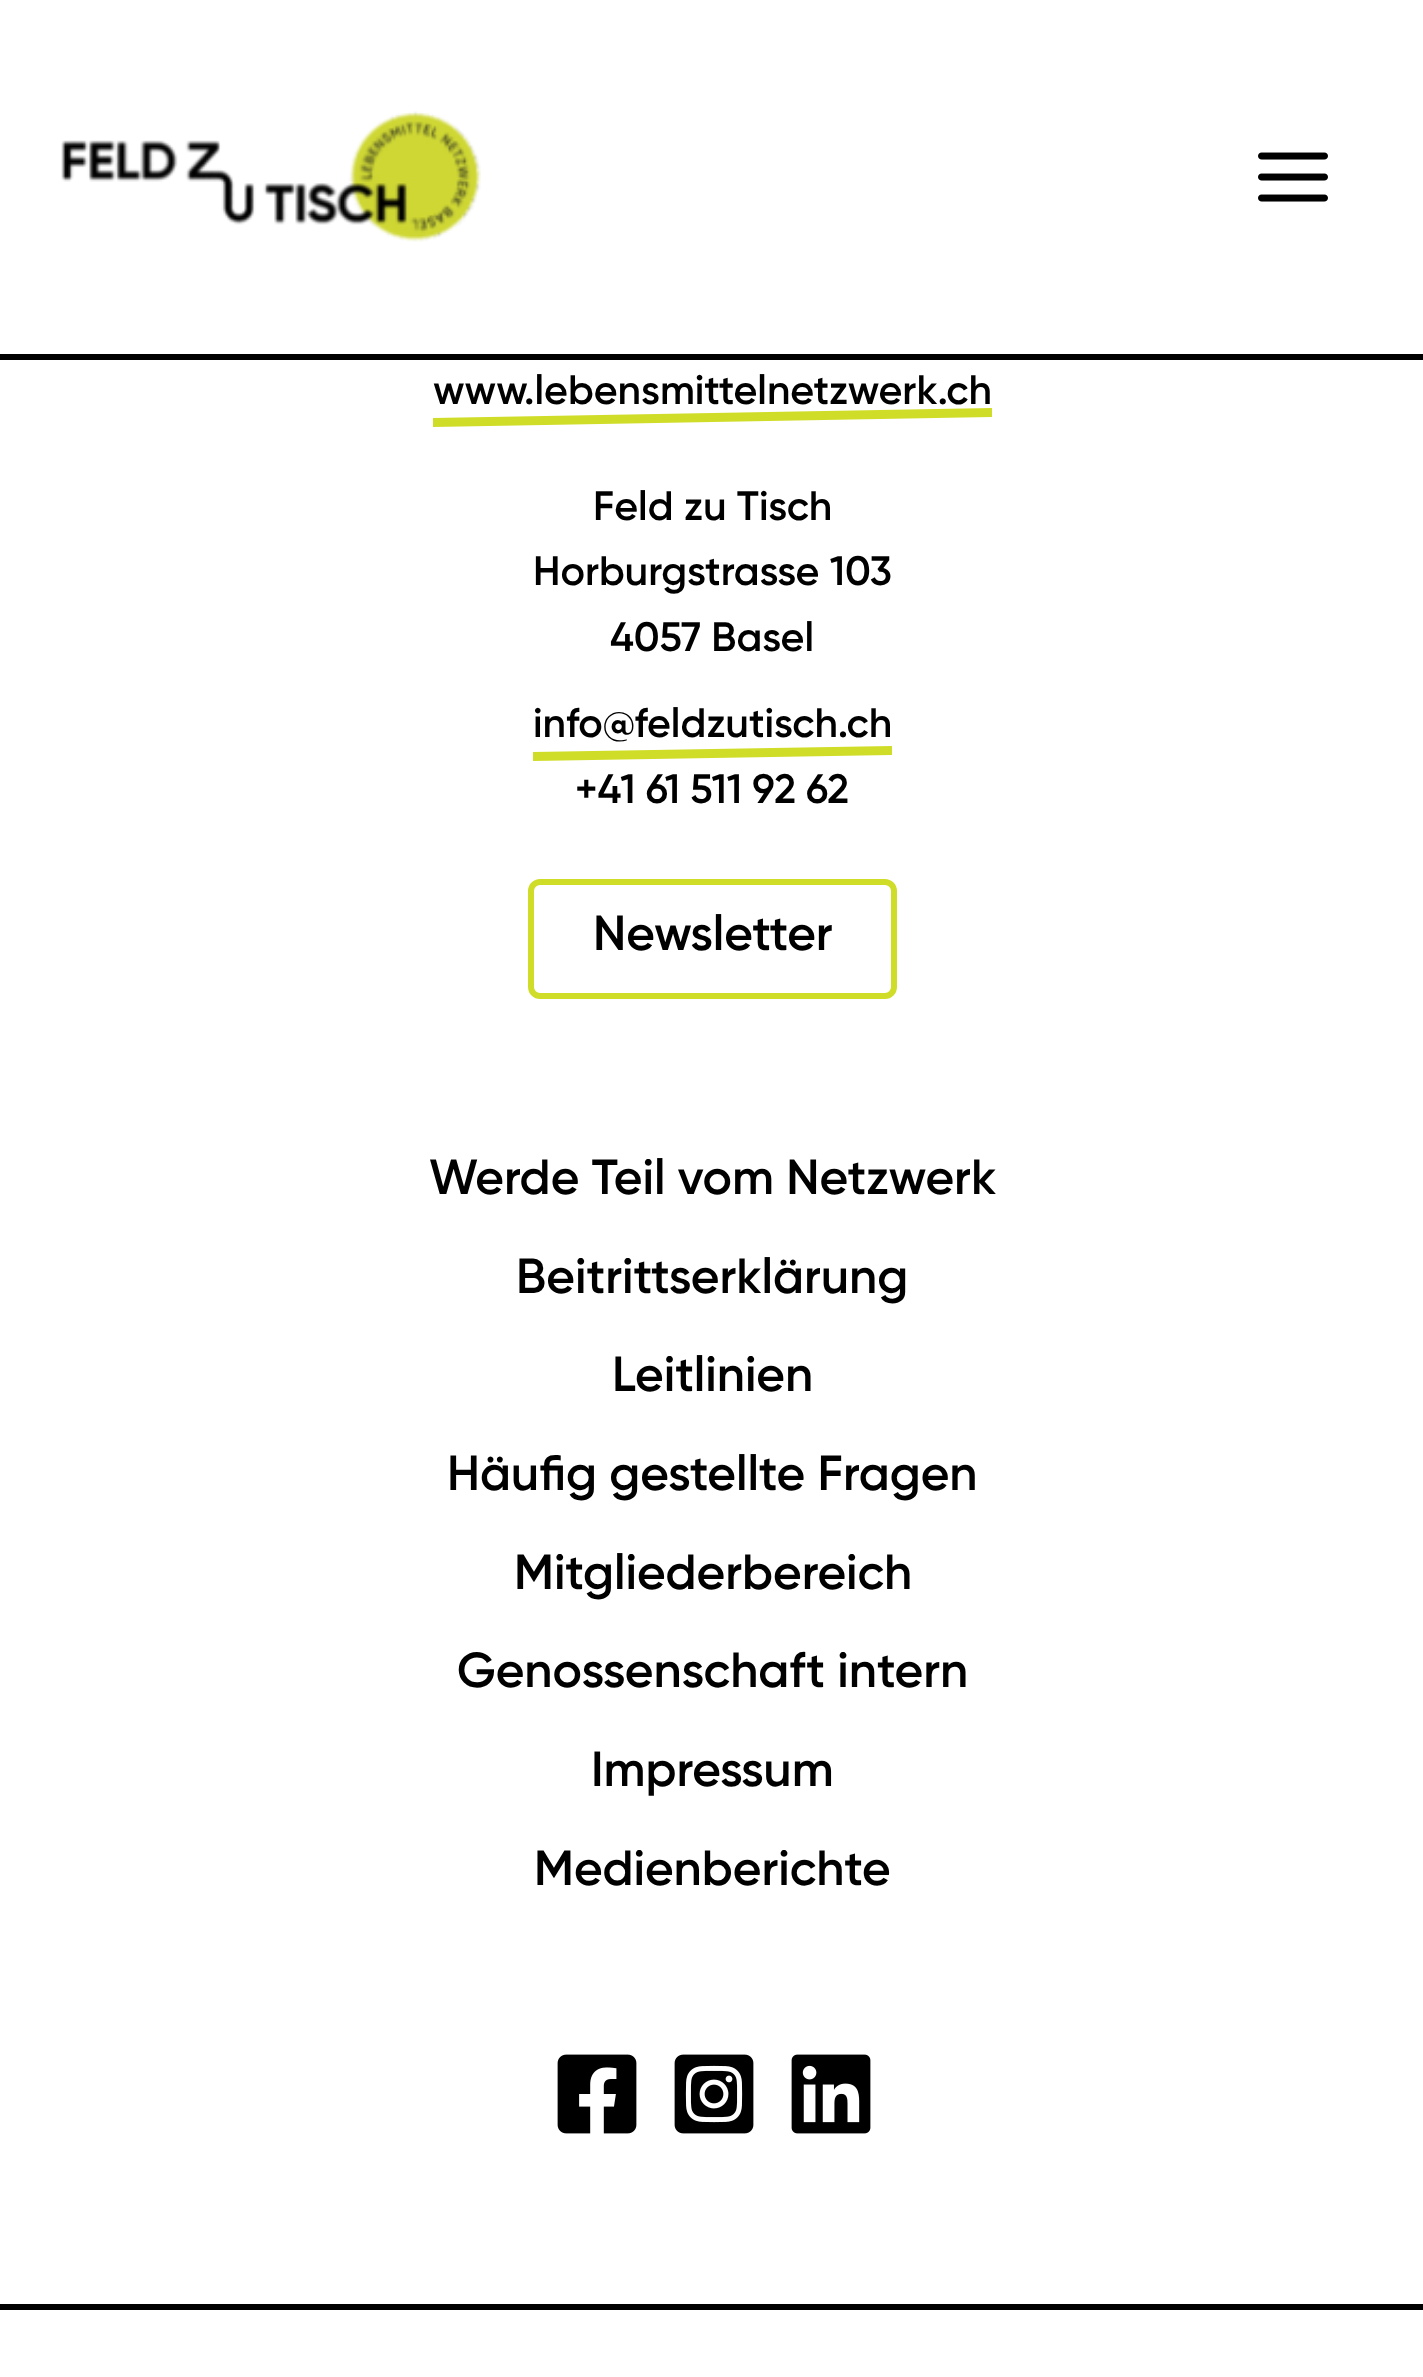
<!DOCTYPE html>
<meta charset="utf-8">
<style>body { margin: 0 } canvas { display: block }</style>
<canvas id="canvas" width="1423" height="2377"></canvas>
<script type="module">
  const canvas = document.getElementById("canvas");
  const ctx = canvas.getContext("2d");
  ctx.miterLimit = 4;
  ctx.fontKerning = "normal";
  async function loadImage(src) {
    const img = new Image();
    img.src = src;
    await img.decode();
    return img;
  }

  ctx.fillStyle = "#ffffff";
  ctx.fillRect(0, 0, 1423, 2377);
  ctx.fillStyle = "#000000";
  ctx.fillRect(0, 354, 1423, 6);
  ctx.drawImage(await loadImage("img1.png"), 61, 111, 420, 131);
  ctx.drawImage(await loadImage("img2.png"), 1258, 152, 70, 50);
  ctx.font = "600 41px Gilroy";
  ctx.fillText("www.lebensmittelnetzwerk.ch", 433, 404);
  ctx.fillStyle = "#d0dd28";
  ctx.beginPath();
  ctx.moveTo(433, 418);
  ctx.lineTo(992, 408);
  ctx.lineTo(992, 417);
  ctx.lineTo(433, 427);
  ctx.closePath();
  ctx.fill();
  ctx.fillStyle = "#000000";
  ctx.fillText("Feld zu Tisch", 593, 520);
  ctx.fillText("Horburgstrasse 103", 533, 585);
  ctx.fillText("4057 Basel", 610, 651);
  ctx.fillText("info@feldzutisch.ch", 533, 737);
  ctx.fillStyle = "#d0dd28";
  ctx.beginPath();
  ctx.moveTo(533, 752);
  ctx.lineTo(892, 746);
  ctx.lineTo(892, 755);
  ctx.lineTo(533, 761);
  ctx.closePath();
  ctx.fill();
  ctx.fillStyle = "#000000";
  ctx.fillText("+41 61 511 92 62", 575, 803);
  ctx.beginPath();
  ctx.roundRect(531, 882, 363, 114, 9);
  ctx.strokeStyle = "#d0dd28";
  ctx.lineWidth = 6;
  ctx.stroke();
  ctx.font = "600 49.25px Gilroy";
  ctx.fillText("Newsletter", 593, 950);
  ctx.fillText("Werde Teil vom Netzwerk", 429, 1194);
  ctx.fillText("Beitrittserklärung", 516, 1293);
  ctx.fillText("Leitlinien", 612, 1391);
  ctx.fillText("Häufig gestellte Fragen", 447, 1490);
  ctx.fillText("Mitgliederbereich", 514, 1589);
  ctx.fillText("Genossenschaft intern", 457, 1687);
  ctx.fillText("Impressum", 591, 1786);
  ctx.fillText("Medienberichte", 534, 1885);
  ctx.drawImage(await loadImage("img3.png"), 557, 2054, 80, 80);
  ctx.drawImage(await loadImage("img4.png"), 674, 2054, 80, 80);
  ctx.drawImage(await loadImage("img5.png"), 791, 2054, 80, 80);
  ctx.fillRect(0, 2304, 1423, 6);
</script>
